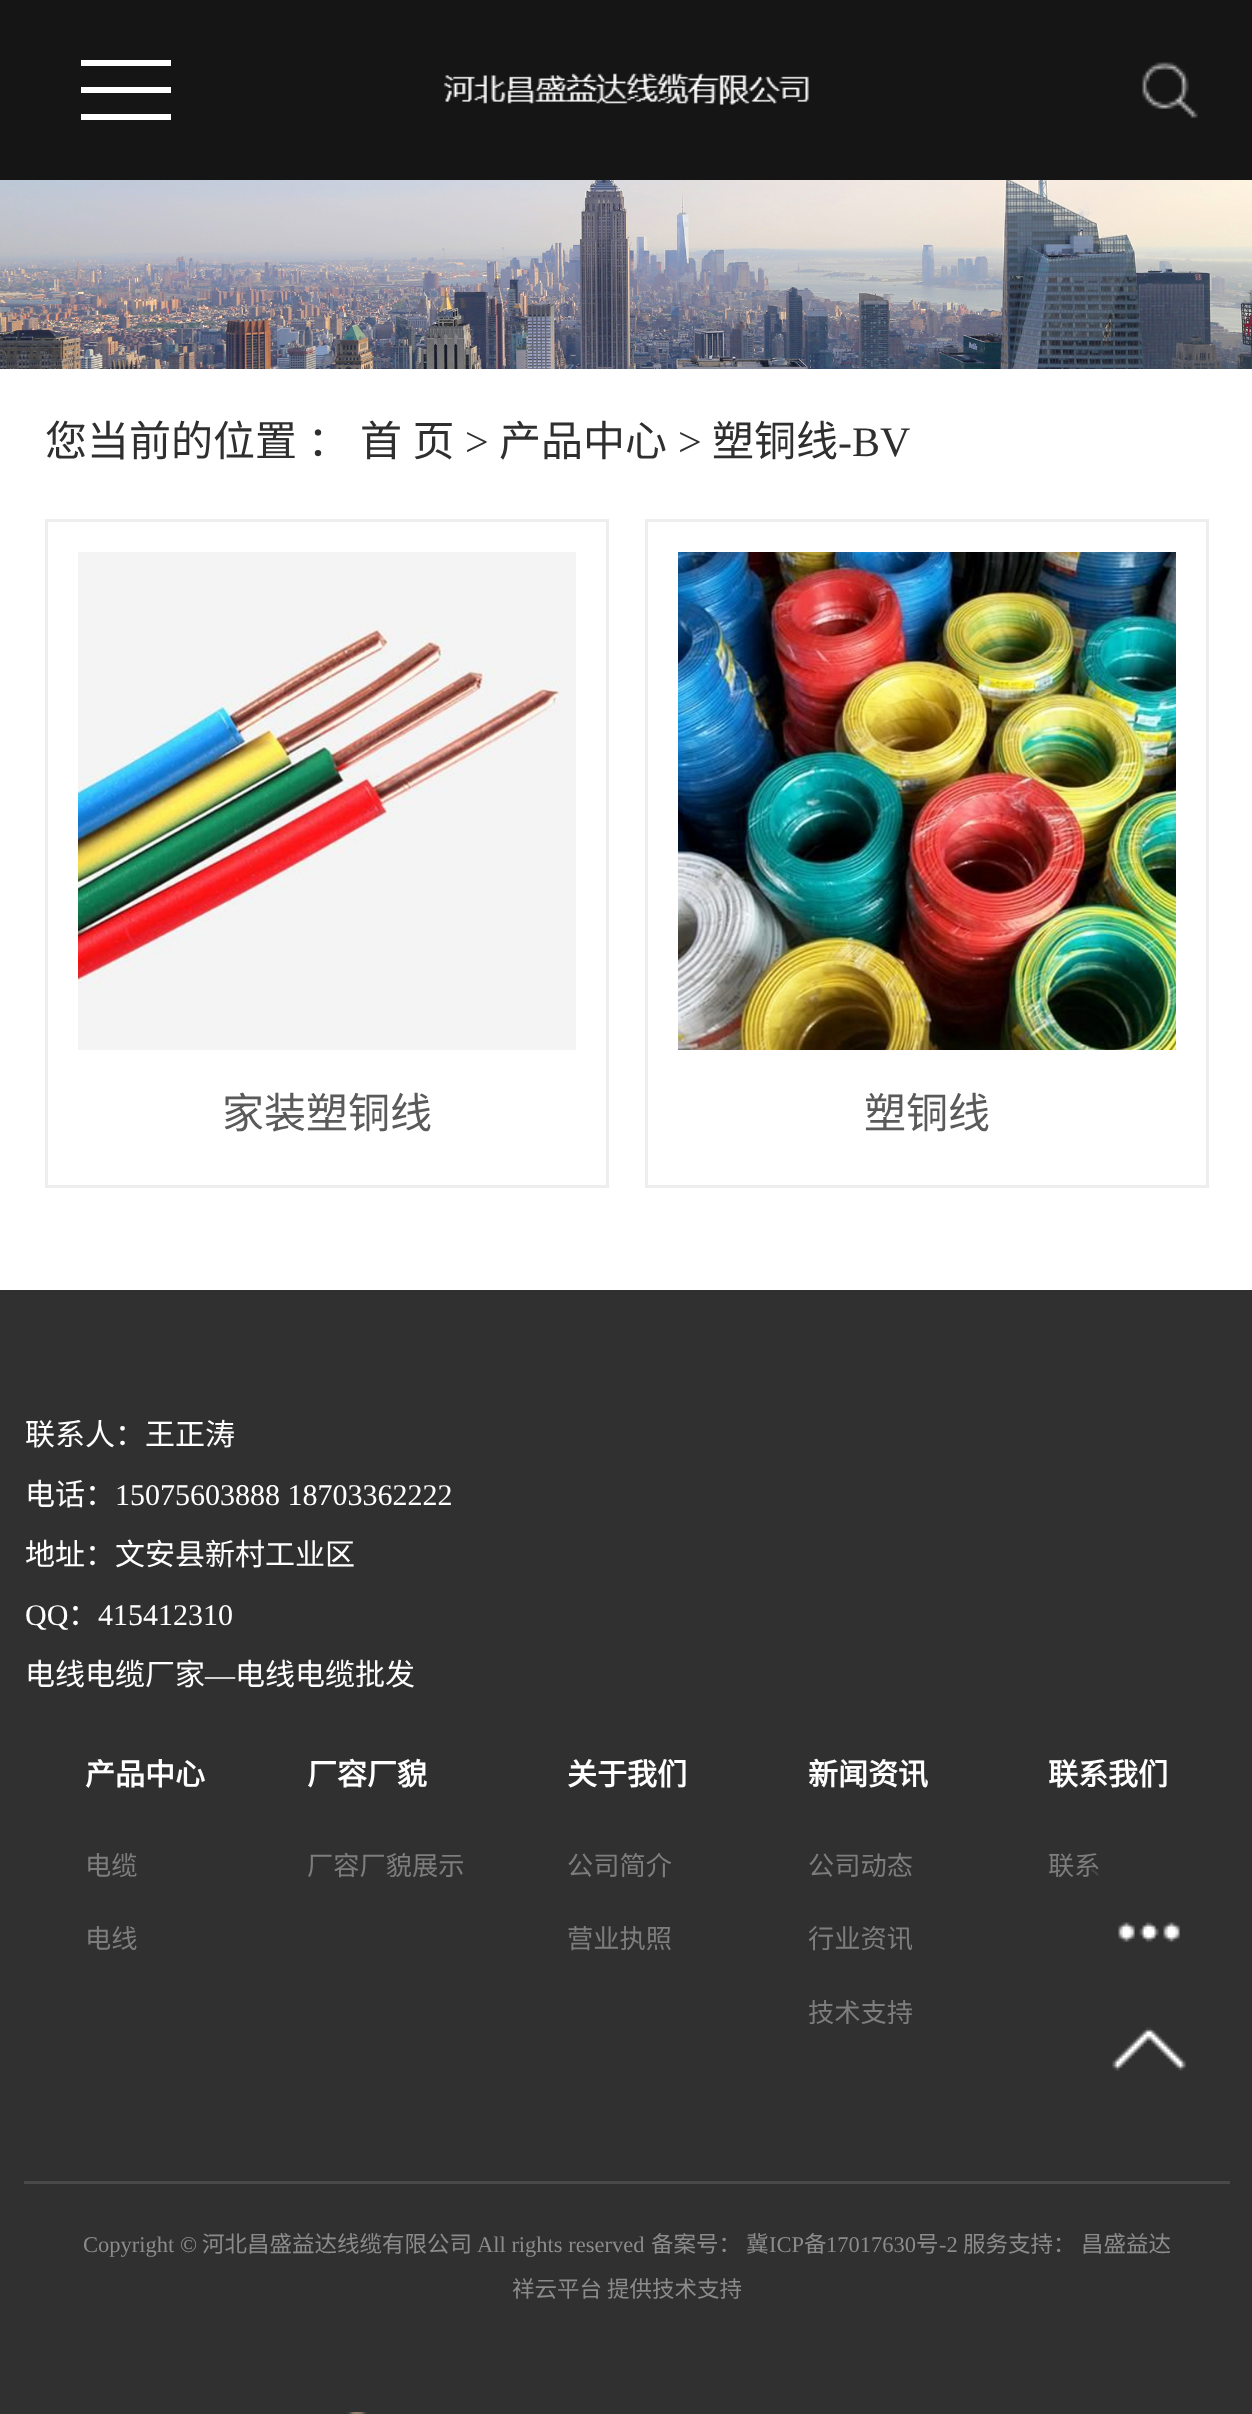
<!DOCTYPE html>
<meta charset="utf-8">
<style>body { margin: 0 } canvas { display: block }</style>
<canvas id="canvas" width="1252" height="2414"></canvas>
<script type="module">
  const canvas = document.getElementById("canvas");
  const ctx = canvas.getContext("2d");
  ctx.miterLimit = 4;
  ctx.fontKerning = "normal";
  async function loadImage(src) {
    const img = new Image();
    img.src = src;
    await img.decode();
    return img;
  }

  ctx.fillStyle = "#ffffff";
  ctx.fillRect(0, 0, 1252, 2414);
  ctx.fillStyle = "#151515";
  ctx.fillRect(0, 0, 1252, 180);
  ctx.fillStyle = "#ffffff";
  ctx.fillRect(81, 60, 90, 6);
  ctx.fillRect(81, 87, 90, 6);
  ctx.fillRect(81, 114, 90, 6);
  ctx.drawImage(await loadImage("img1.png"), 444, 73, 365, 32);
  ctx.drawImage(await loadImage("img2.png"), 1142, 62, 56, 56);
  ctx.drawImage(await loadImage("img3.png"), 0, 180, 1252, 189);
  ctx.wordSpacing = "1px";
  ctx.font = "42px Noto Sans CJK SC";
  ctx.fillStyle = "#2f2f2f";
  ctx.fillText("您当前的位置 ：", 45, 456);
  ctx.fillText("首 页", 360, 456);
  ctx.wordSpacing = "0px";
  ctx.font = "42px Liberation Serif";
  ctx.fillText(">", 465, 456);
  ctx.font = "42px Noto Sans CJK SC";
  ctx.fillText("产品中心", 499, 456);
  ctx.font = "42px Liberation Serif";
  ctx.fillText(">", 678, 456);
  ctx.font = "42px Noto Sans CJK SC";
  ctx.fillText("塑铜线", 712, 456);
  ctx.font = "42px Liberation Serif";
  ctx.fillText("-BV", 838, 456);
  ctx.strokeStyle = "#eeeeee";
  ctx.lineWidth = 3;
  ctx.strokeRect(46.5, 520.5, 561, 666);
  ctx.drawImage(await loadImage("img4.png"), 78, 552, 498, 498);
  ctx.font = "42px Noto Sans CJK SC";
  ctx.fillStyle = "#5a5a5a";
  ctx.fillText("家装塑铜线", 222, 1128);
  ctx.strokeRect(646.5, 520.5, 561, 666);
  ctx.drawImage(await loadImage("img5.png"), 678, 552, 498, 498);
  ctx.fillText("塑铜线", 864, 1128);
  ctx.fillStyle = "#303030";
  ctx.fillRect(0, 1290, 1252, 1124);
  ctx.font = "26.25px Noto Sans CJK SC";
  ctx.fillStyle = "#7d7d7d";
  ctx.fillText("联系", 1048, 1875);
  ctx.fillStyle = "rgba(48, 48, 48, 0.7)";
  ctx.fillRect(1089, 1869, 11, 7);
  ctx.drawImage(await loadImage("img6.png"), 1118, 1922, 62, 20);
  ctx.drawImage(await loadImage("img7.png"), 1112, 2027, 74, 44);
  ctx.font = "30px Noto Sans CJK SC";
  ctx.fillStyle = "#ffffff";
  ctx.fillText("联系人：王正涛", 25, 1445);
  ctx.fillText("电话：", 25, 1505);
  ctx.font = "30px Liberation Serif";
  ctx.fillText("15075603888 18703362222", 115, 1505);
  ctx.font = "30px Noto Sans CJK SC";
  ctx.fillText("地址：文安县新村工业区", 25, 1565);
  ctx.font = "30px Liberation Serif";
  ctx.fillText("QQ", 25, 1625);
  ctx.font = "30px Noto Sans CJK SC";
  ctx.fillText("：", 68, 1625);
  ctx.font = "30px Liberation Serif";
  ctx.fillText("415412310", 98, 1625);
  ctx.font = "30px Noto Sans CJK SC";
  ctx.fillText("电线电缆厂家", 25, 1685);
  ctx.font = "30px Liberation Serif";
  ctx.fillText("—", 205, 1685);
  ctx.font = "30px Noto Sans CJK SC";
  ctx.fillText("电线电缆批发", 235, 1685);
  ctx.font = "bold 30px Noto Sans CJK SC";
  ctx.fillText("产品中心", 85, 1785);
  ctx.font = "26.25px Noto Sans CJK SC";
  ctx.fillStyle = "#7d7d7d";
  ctx.fillText("电缆", 85, 1875);
  ctx.fillText("电线", 85, 1948);
  ctx.font = "bold 30px Noto Sans CJK SC";
  ctx.fillStyle = "#ffffff";
  ctx.fillText("厂容厂貌", 307, 1785);
  ctx.font = "26.25px Noto Sans CJK SC";
  ctx.fillStyle = "#7d7d7d";
  ctx.fillText("厂容厂貌展示", 307, 1875);
  ctx.font = "bold 30px Noto Sans CJK SC";
  ctx.fillStyle = "#ffffff";
  ctx.fillText("关于我们", 567, 1785);
  ctx.font = "26.25px Noto Sans CJK SC";
  ctx.fillStyle = "#7d7d7d";
  ctx.fillText("公司简介", 567, 1875);
  ctx.fillText("营业执照", 567, 1948);
  ctx.font = "bold 30px Noto Sans CJK SC";
  ctx.fillStyle = "#ffffff";
  ctx.fillText("新闻资讯", 808, 1785);
  ctx.font = "26.25px Noto Sans CJK SC";
  ctx.fillStyle = "#7d7d7d";
  ctx.fillText("公司动态", 808, 1875);
  ctx.fillText("行业资讯", 808, 1948);
  ctx.fillText("技术支持", 808, 2022);
  ctx.font = "bold 30px Noto Sans CJK SC";
  ctx.fillStyle = "#ffffff";
  ctx.fillText("联系我们", 1048, 1785);
  ctx.fillStyle = "#494949";
  ctx.fillRect(24, 2181, 1206, 3);
  ctx.font = "22.5px Liberation Serif";
  ctx.fillStyle = "#8b8b8b";
  ctx.fillText("Copyright ©", 83, 2252);
  ctx.font = "22.5px Noto Sans CJK SC";
  ctx.fillText("河北昌盛益达线缆有限公司", 202, 2252);
  ctx.font = "22.5px Liberation Serif";
  ctx.fillText("All rights reserved", 477, 2252);
  ctx.font = "22.5px Noto Sans CJK SC";
  ctx.fillText("备案号：", 651, 2252);
  ctx.fillText("冀", 746, 2252);
  ctx.font = "22.5px Liberation Serif";
  ctx.fillText("ICP", 769, 2252);
  ctx.font = "22.5px Noto Sans CJK SC";
  ctx.fillText("备", 804, 2252);
  ctx.font = "22.5px Liberation Serif";
  ctx.fillText("17017630", 826, 2252);
  ctx.font = "22.5px Noto Sans CJK SC";
  ctx.fillText("号", 916, 2252);
  ctx.font = "22.5px Liberation Serif";
  ctx.fillText("-2", 939, 2252);
  ctx.font = "22.5px Noto Sans CJK SC";
  ctx.fillText("服务支持：", 963, 2252);
  ctx.fillText("昌盛益达", 1081, 2252);
  ctx.fillText("祥云平台", 512, 2297);
  ctx.fillText("提供技术支持", 607, 2297);
  ctx.drawImage(await loadImage("img8.png"), 347, 2412, 20, 2);
</script>
